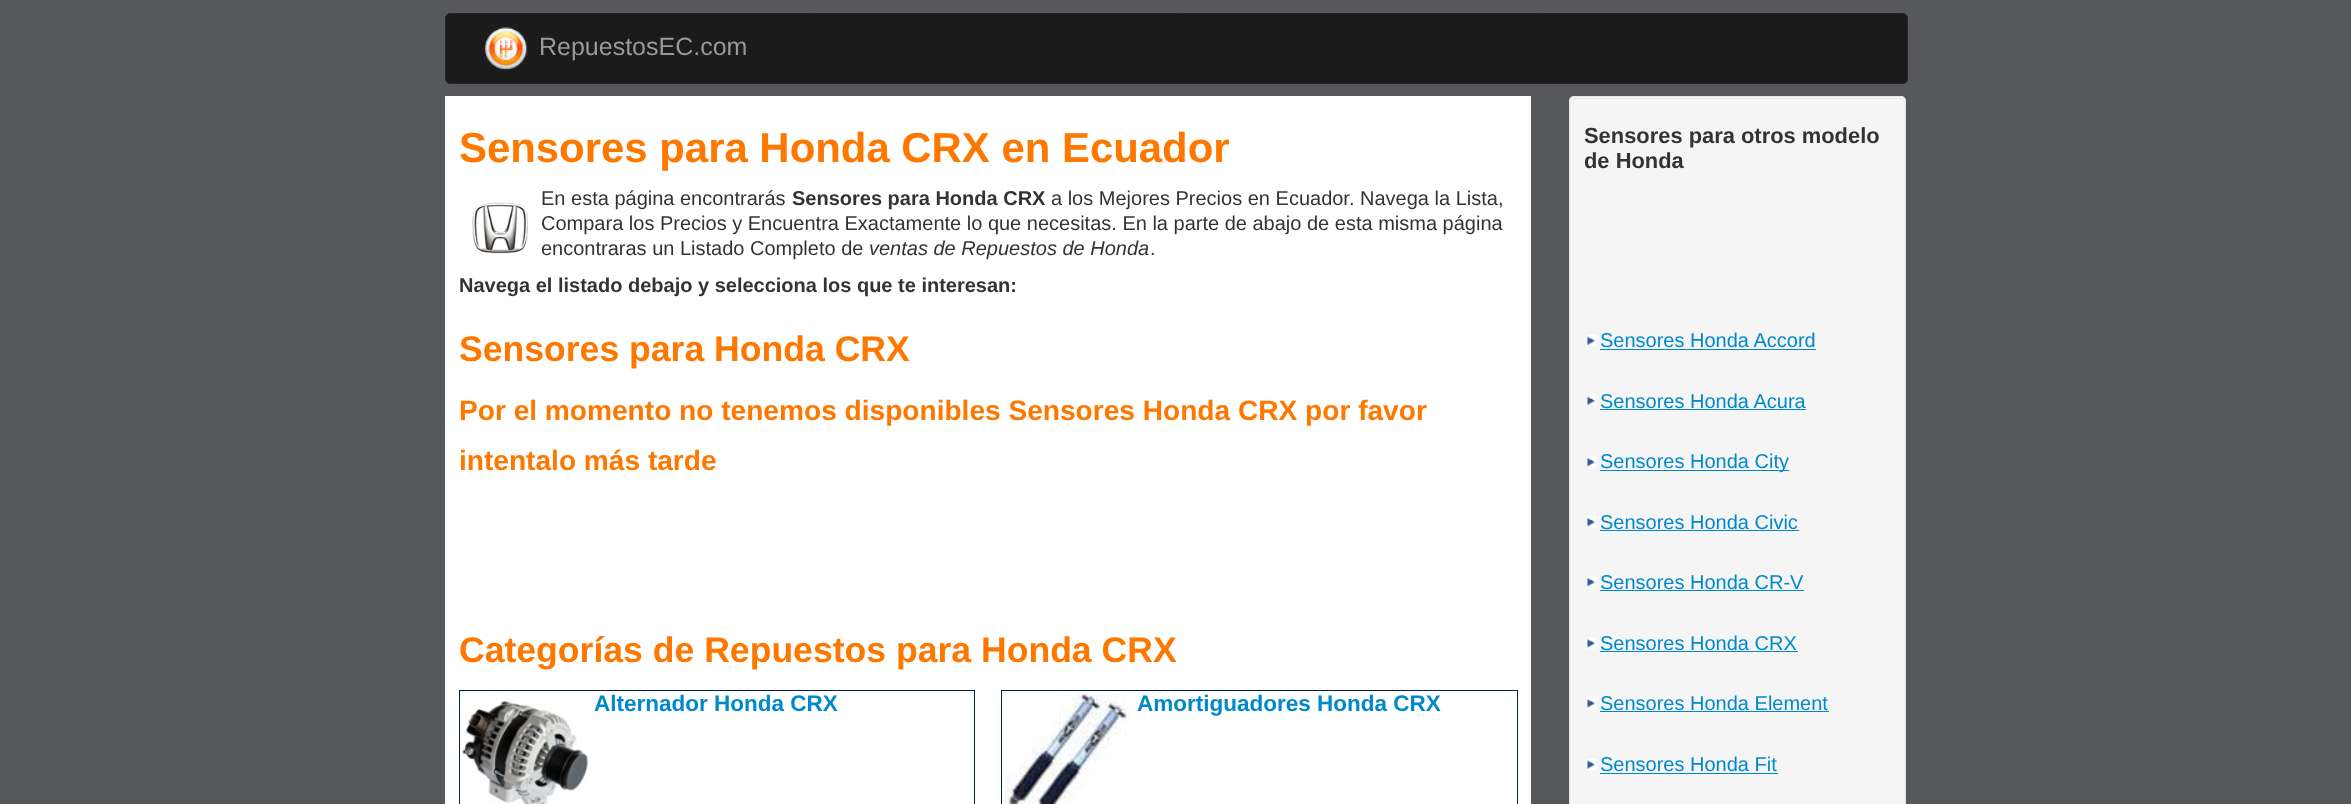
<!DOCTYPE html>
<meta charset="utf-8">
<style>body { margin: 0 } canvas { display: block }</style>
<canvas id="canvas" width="2351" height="804"></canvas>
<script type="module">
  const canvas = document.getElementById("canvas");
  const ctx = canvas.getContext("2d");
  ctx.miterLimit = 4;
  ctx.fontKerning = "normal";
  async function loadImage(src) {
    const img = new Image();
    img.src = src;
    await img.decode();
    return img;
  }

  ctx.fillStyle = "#57585c";
  ctx.fillRect(0, 0, 2351, 804);
  ctx.fillStyle = "#1b1b1b";
  ctx.beginPath();
  ctx.roundRect(445.5, 13.5, 1462, 70, 4.5);
  ctx.fill();
  ctx.strokeStyle = "#252525";
  ctx.stroke();
  ctx.drawImage(await loadImage("img1.png"), 484, 27, 44, 43);
  ctx.font = "25px Liberation Sans";
  ctx.fillStyle = "#999999";
  ctx.fillText("RepuestosEC.com", 539, 55);
  ctx.fillStyle = "#ffffff";
  ctx.fillRect(445, 96, 1086, 708);
  ctx.font = "bold 41.9px Liberation Sans";
  ctx.fillStyle = "#fe7800";
  ctx.fillText("Sensores para Honda CRX en Ecuador", 459, 162);
  ctx.font = "20px Liberation Sans";
  ctx.fillStyle = "#333333";
  ctx.fillText("En esta página encontrarás", 541, 205);
  ctx.font = "bold 20px Liberation Sans";
  ctx.fillText("Sensores para Honda CRX", 792, 205);
  ctx.font = "20px Liberation Sans";
  ctx.fillText("a los Mejores Precios en Ecuador. Navega la Lista,", 1051, 205);
  ctx.drawImage(await loadImage("img2.png"), 472, 202, 56, 52);
  ctx.fillText("Compara los Precios y Encuentra Exactamente lo que necesitas. En la parte de abajo de esta misma página", 541, 230);
  ctx.fillText("encontraras un Listado Completo de", 541, 255);
  ctx.font = "italic 20px Liberation Sans";
  ctx.fillText("ventas de Repuestos de Honda", 869, 255);
  ctx.font = "20px Liberation Sans";
  ctx.fillText(".", 1150, 255);
  ctx.font = "bold 20px Liberation Sans";
  ctx.fillText("Navega el listado debajo y selecciona los que te interesan:", 459, 292);
  ctx.font = "bold 35.6px Liberation Sans";
  ctx.fillStyle = "#fe7800";
  ctx.fillText("Sensores para Honda CRX", 459, 361);
  ctx.font = "bold 28.1px Liberation Sans";
  ctx.fillText("Por el momento no tenemos disponibles Sensores Honda CRX por favor", 459, 420);
  ctx.fillText("intentalo más tarde", 459, 470);
  ctx.font = "bold 35.6px Liberation Sans";
  ctx.fillText("Categorías de Repuestos para Honda CRX", 459, 662);
  ctx.strokeStyle = "#051e46";
  ctx.strokeRect(459.5, 690.5, 515, 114);
  ctx.drawImage(await loadImage("img3.png"), 462, 695, 126, 109);
  ctx.font = "bold 22.5px Liberation Sans";
  ctx.fillStyle = "#0088cc";
  ctx.fillText("Alternador Honda CRX", 594, 711);
  ctx.strokeRect(1001.5, 690.5, 516, 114);
  ctx.drawImage(await loadImage("img4.png"), 1005, 693, 125, 111);
  ctx.fillText("Amortiguadores Honda CRX", 1137, 711);
  ctx.fillStyle = "#f5f5f5";
  ctx.beginPath();
  ctx.roundRect(1569, 96, 337, 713, 5);
  ctx.fill();
  ctx.fillStyle = "#e9e9e9";
  ctx.beginPath();
  ctx.moveTo(1574, 99);
  ctx.lineTo(1901, 99);
  ctx.bezierCurveTo(1903, 99, 1905, 100, 1905, 102);
  ctx.bezierCurveTo(1905, 100, 1903, 98, 1901, 98);
  ctx.lineTo(1574, 98);
  ctx.bezierCurveTo(1572, 98, 1570, 100, 1570, 102);
  ctx.bezierCurveTo(1570, 100, 1572, 99, 1574, 99);
  ctx.closePath();
  ctx.fill();
  ctx.beginPath();
  ctx.roundRect(1569.5, 96.5, 336, 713, 4.5);
  ctx.strokeStyle = "#e3e3e3";
  ctx.stroke();
  ctx.font = "bold 21.9px Liberation Sans";
  ctx.fillStyle = "#333333";
  ctx.fillText("Sensores para otros modelo", 1584, 143);
  ctx.fillText("de Honda", 1584, 168);
  ctx.drawImage(await loadImage("img5.png"), 1587, 335, 9, 11);
  ctx.font = "20px Liberation Sans";
  ctx.fillStyle = "#0088cc";
  ctx.fillText("Sensores Honda Accord", 1600, 347);
  ctx.fillRect(1600, 349, 216, 1);
  ctx.drawImage(await loadImage("img5.png"), 1587, 395, 9, 11);
  ctx.fillText("Sensores Honda Acura", 1600, 408);
  ctx.fillRect(1600, 409, 206, 1);
  ctx.drawImage(await loadImage("img6.png"), 1587, 456, 9, 12);
  ctx.fillRect(1600, 470, 189, 1);
  ctx.fillText("Sensores Honda City", 1600, 468);
  ctx.drawImage(await loadImage("img6.png"), 1587, 516, 9, 12);
  ctx.fillText("Sensores Honda Civic", 1600, 529);
  ctx.fillRect(1600, 530, 199, 1);
  ctx.drawImage(await loadImage("img6.png"), 1587, 576, 9, 12);
  ctx.fillText("Sensores Honda CR-V", 1600, 589);
  ctx.fillRect(1600, 590, 204, 1);
  ctx.drawImage(await loadImage("img7.png"), 1587, 637, 9, 12);
  ctx.fillText("Sensores Honda CRX", 1600, 650);
  ctx.fillRect(1600, 651, 198, 1);
  ctx.drawImage(await loadImage("img7.png"), 1587, 697, 9, 12);
  ctx.fillText("Sensores Honda Element", 1600, 710);
  ctx.fillRect(1600, 711, 229, 1);
  ctx.drawImage(await loadImage("img8.png"), 1587, 759, 9, 11);
  ctx.fillText("Sensores Honda Fit", 1600, 771);
  ctx.fillRect(1600, 773, 178, 1);
</script>
